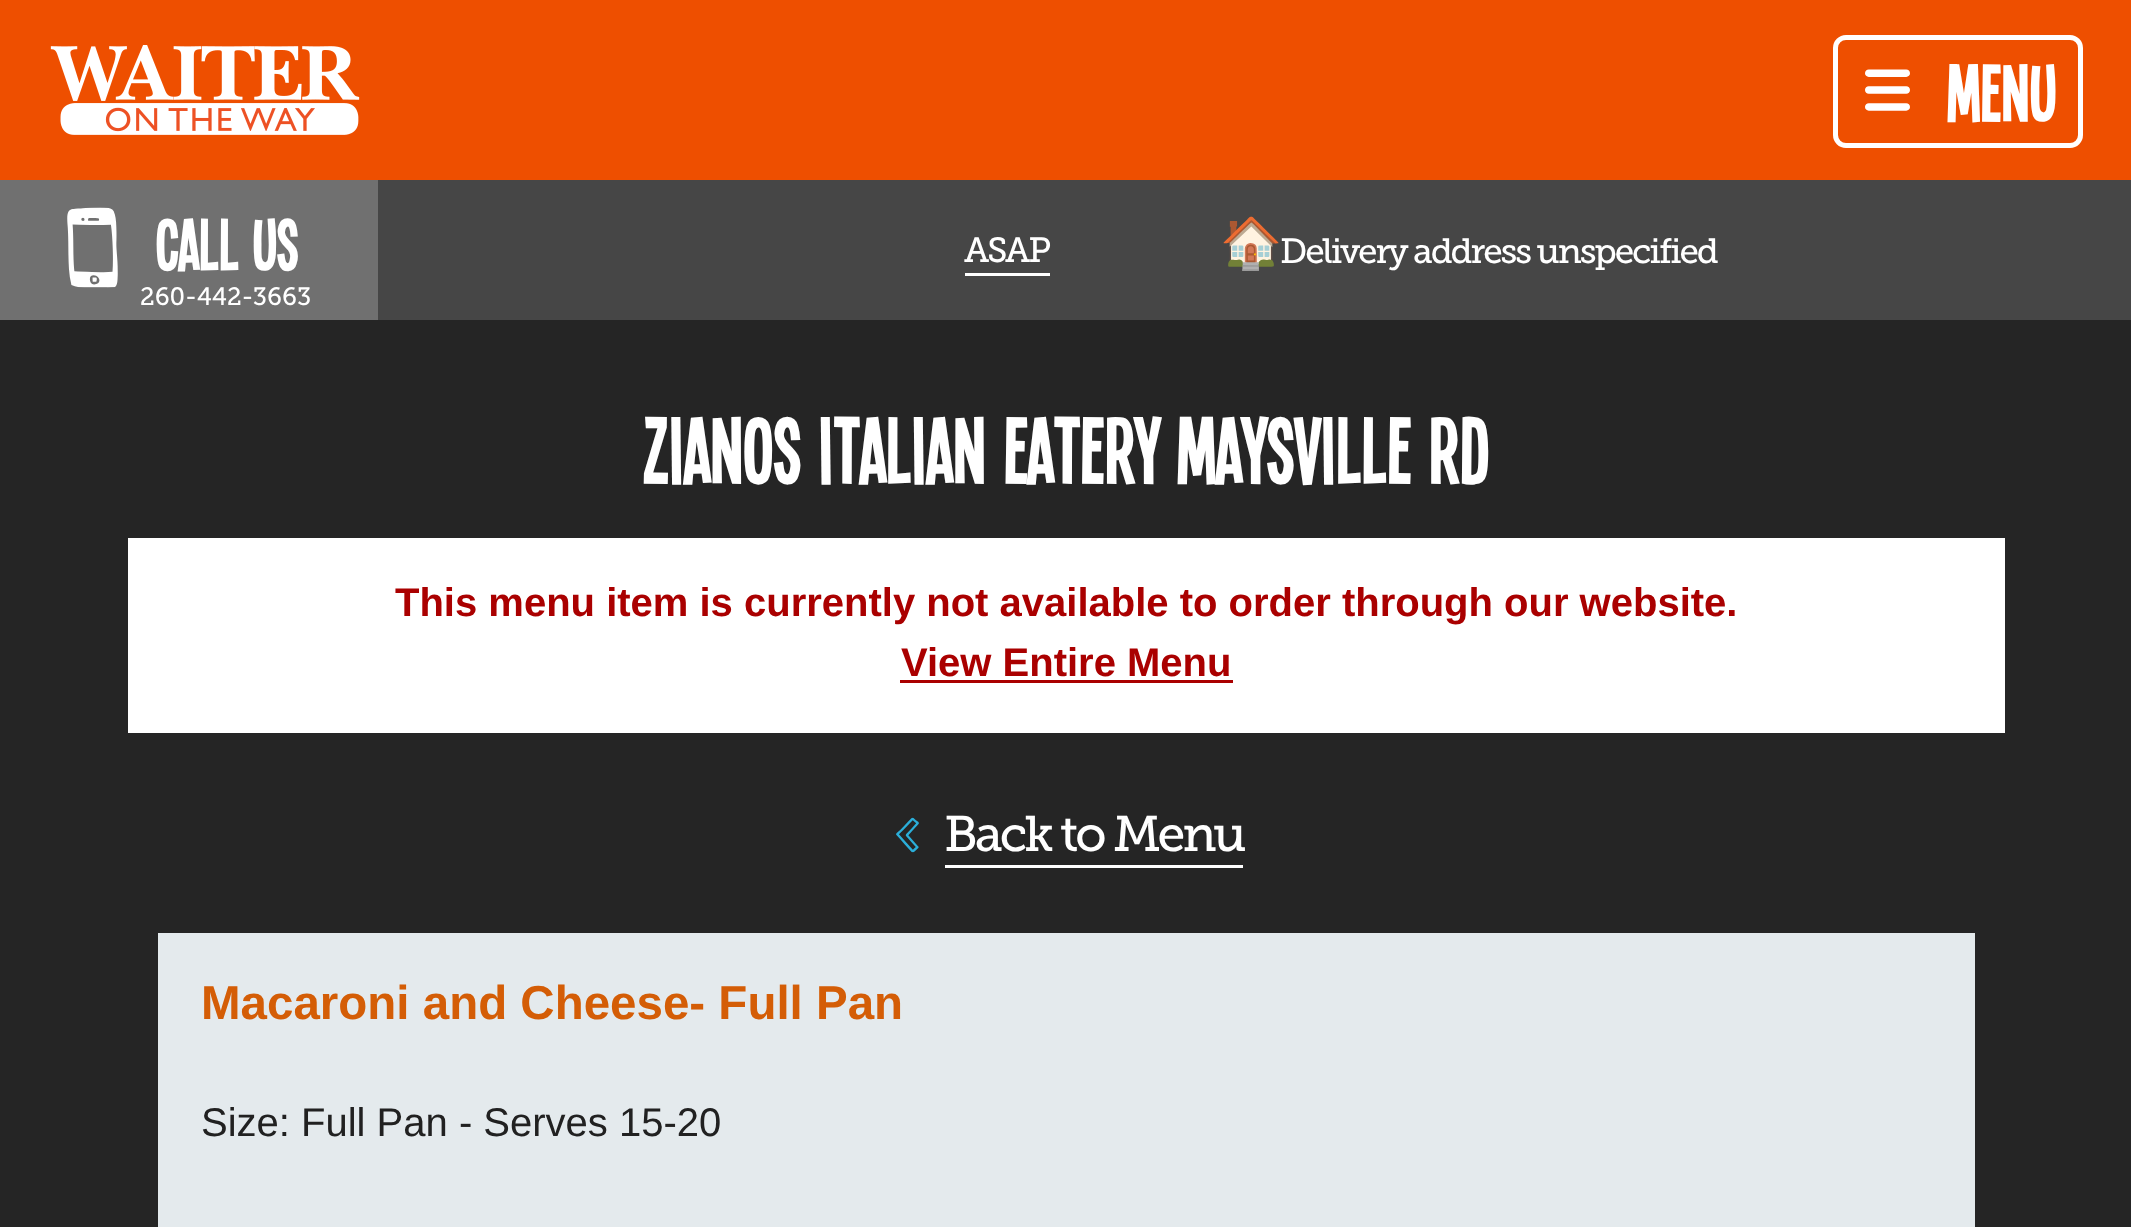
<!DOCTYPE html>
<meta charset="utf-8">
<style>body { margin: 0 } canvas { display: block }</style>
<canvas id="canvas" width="2131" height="1227"></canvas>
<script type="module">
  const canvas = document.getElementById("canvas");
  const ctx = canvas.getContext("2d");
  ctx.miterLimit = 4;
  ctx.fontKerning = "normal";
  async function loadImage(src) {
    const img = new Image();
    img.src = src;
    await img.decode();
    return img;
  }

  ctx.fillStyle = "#252525";
  ctx.fillRect(0, 0, 2131, 1227);
  ctx.fillStyle = "#ee4f00";
  ctx.fillRect(0, 0, 2131, 180);
  ctx.drawImage(await loadImage("img1.png"), 50, 45, 310, 90);
  ctx.beginPath();
  ctx.roundRect(1835.5, 37.5, 245, 108, 10.5);
  ctx.strokeStyle = "#ffffff";
  ctx.lineWidth = 5;
  ctx.stroke();
  ctx.drawImage(await loadImage("img2.png"), 1865, 69, 45, 42);
  ctx.font = "88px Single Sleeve";
  ctx.fillStyle = "#ffffff";
  ctx.fillText("Menu", 1947, 121);
  ctx.fillStyle = "#464646";
  ctx.fillRect(378, 180, 1753, 140);
  ctx.fillStyle = "#707070";
  ctx.fillRect(0, 180, 378, 140);
  ctx.drawImage(await loadImage("img3.png"), 67, 207, 51, 81);
  ctx.font = "80px Single Sleeve";
  ctx.fillStyle = "#ffffff";
  ctx.fillText("Call Us", 156, 270);
  ctx.font = "25px Museo Slab";
  ctx.fillText("260-442-3663", 140, 305);
  ctx.letterSpacing = "-2.1px";
  ctx.font = "35px Museo Slab";
  ctx.fillText("ASAP", 964, 262);
  ctx.fillRect(965, 273, 85, 3);
  ctx.font = "50px Noto Color Emoji";
  ctx.fillText("🏠", 1220, 260);
  ctx.font = "35px Museo Slab";
  ctx.fillText("Delivery address unspecified", 1280, 263);
  ctx.letterSpacing = "0px";
  ctx.font = "102.5px Single Sleeve";
  ctx.fillText("Zianos Italian Eatery Maysville Rd", 643, 483);
  ctx.fillRect(128, 538, 1877, 195);
  ctx.font = "bold 40px Liberation Sans";
  ctx.fillStyle = "#aa0000";
  ctx.fillText("This menu item is currently not available to order through our website.", 395, 616);
  ctx.fillText("View Entire Menu", 901, 676);
  ctx.fillRect(900, 680, 333, 3);
  ctx.drawImage(await loadImage("img4.png"), 896, 817, 23, 36);
  ctx.letterSpacing = "-3px";
  ctx.font = "50px Museo Slab";
  ctx.fillStyle = "#ffffff";
  ctx.fillText("Back to Menu", 944, 851);
  ctx.fillRect(945, 865, 298, 3);
  ctx.fillStyle = "#e4eaed";
  ctx.fillRect(158, 933, 1817, 294);
  ctx.letterSpacing = "0px";
  ctx.font = "bold 47.5px Liberation Sans";
  ctx.fillStyle = "#d45d06";
  ctx.fillText("Macaroni and Cheese- Full Pan", 201, 1019);
  ctx.font = "40px Liberation Sans";
  ctx.fillStyle = "#212121";
  ctx.fillText("Size: Full Pan - Serves 15-20", 201, 1136);
</script>
